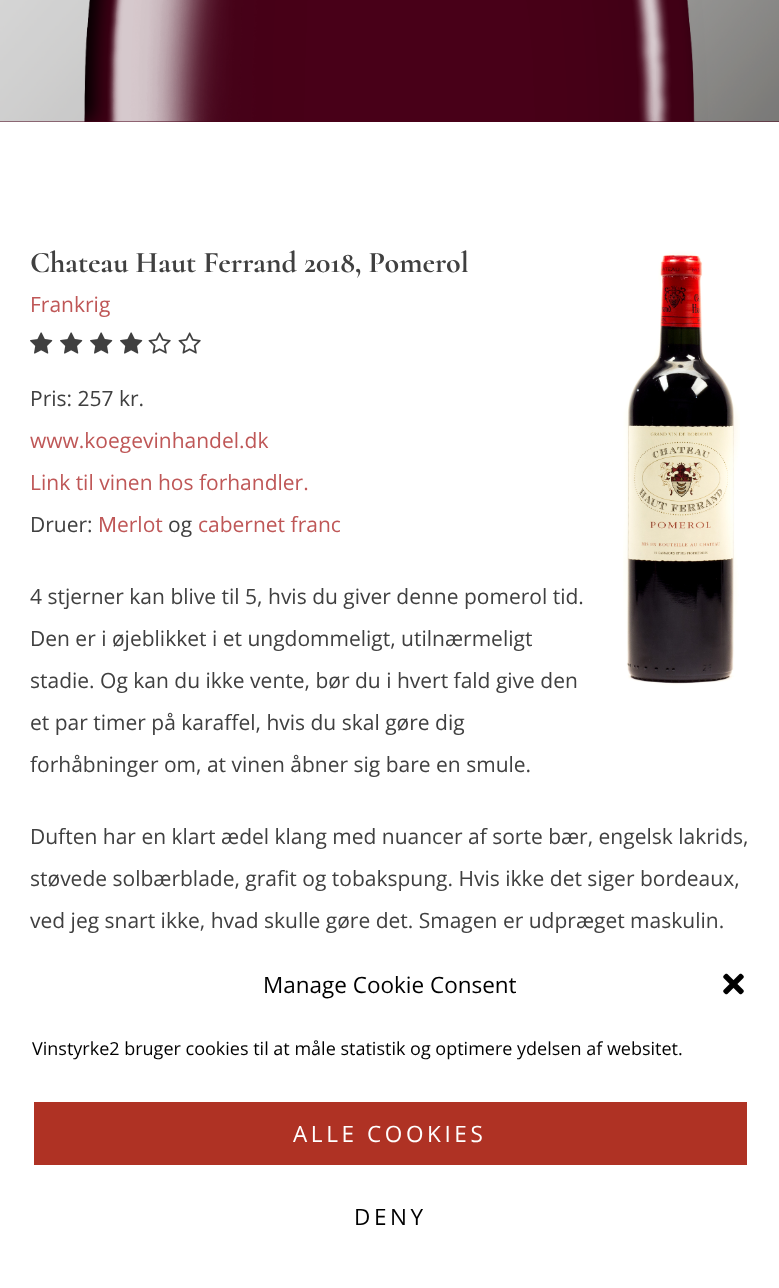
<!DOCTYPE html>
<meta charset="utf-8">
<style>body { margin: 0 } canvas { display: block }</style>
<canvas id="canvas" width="779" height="1288"></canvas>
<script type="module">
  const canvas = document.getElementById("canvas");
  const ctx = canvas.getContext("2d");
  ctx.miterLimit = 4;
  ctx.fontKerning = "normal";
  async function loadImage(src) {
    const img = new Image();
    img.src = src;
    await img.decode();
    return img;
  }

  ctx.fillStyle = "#ffffff";
  ctx.fillRect(0, 0, 779, 1288);
  ctx.fillStyle = "#480018";
  ctx.fillRect(0, 0, 779, 122);
  ctx.drawImage(await loadImage("img1.png"), 0, 0, 779, 122);
  ctx.font = "300 30px Cormorant";
  ctx.fillStyle = "#404040";
  ctx.fillText("Chateau Haut Ferrand 2018, Pomerol", 30, 272);
  ctx.drawImage(await loadImage("img2.png"), 623, 250, 117, 435);
  ctx.font = "21px Open Sans";
  ctx.fillStyle = "#bf5757";
  ctx.fillText("Frankrig", 30, 312);
  ctx.drawImage(await loadImage("img3.png"), 30, 332, 23, 22);
  ctx.drawImage(await loadImage("img3.png"), 60, 332, 23, 22);
  ctx.drawImage(await loadImage("img3.png"), 90, 332, 23, 22);
  ctx.drawImage(await loadImage("img3.png"), 120, 332, 23, 22);
  ctx.drawImage(await loadImage("img4.png"), 148, 332, 23, 22);
  ctx.drawImage(await loadImage("img4.png"), 178, 332, 23, 22);
  ctx.fillStyle = "#404040";
  ctx.fillText("Pris: 257 kr.", 30, 406);
  ctx.fillStyle = "#bf5757";
  ctx.fillText("www.koegevinhandel.dk", 30, 448);
  ctx.fillText("Link til vinen hos forhandler.", 30, 490);
  ctx.fillStyle = "#404040";
  ctx.fillText("Druer:", 30, 532);
  ctx.font = "21px Noto Sans";
  ctx.fillStyle = "#bf5757";
  ctx.fillText("M", 98, 532);
  ctx.font = "21px Open Sans";
  ctx.fillText("erlot", 117, 532);
  ctx.fillStyle = "#404040";
  ctx.fillText("og", 168, 532);
  ctx.fillStyle = "#bf5757";
  ctx.fillText("cabernet franc", 198, 532);
  ctx.fillStyle = "#404040";
  ctx.fillText("4 stjerner kan blive til 5, hvis du giver denne pomerol tid.", 30, 604);
  ctx.fillText("Den er i øjeblikket i et ungdommeligt, utilnærmeligt", 30, 646);
  ctx.fillText("stadie. Og kan du ikke vente, bør du i hvert fald give den", 30, 688);
  ctx.fillText("et par timer på karaffel, hvis du skal gøre dig", 30, 730);
  ctx.fillText("forhåbninger om, at vinen åbner sig bare en smule.", 30, 772);
  ctx.fillText("Duften har en klart ædel klang med nuancer af sorte bær, engelsk lakrids,", 30, 844);
  ctx.fillText("støvede solbærblade, grafit og tobakspung. Hvis ikke det siger bordeaux,", 30, 886);
  ctx.fillText("ved jeg snart ikke, hvad skulle gøre det. Smagen er udpræget maskulin.", 30, 928);
  ctx.font = "22.5px Open Sans";
  ctx.fillStyle = "#000000";
  ctx.fillText("Manage Cookie Consent", 263, 993);
  ctx.drawImage(await loadImage("img5.png"), 723, 973, 21, 22);
  ctx.font = "18px Open Sans";
  ctx.fillText("Vinstyrke2 bruger cookies til at måle statistik og optimere ydelsen af websitet.", 32, 1055);
  ctx.fillStyle = "#af3224";
  ctx.fillRect(34, 1102, 713, 63);
  ctx.letterSpacing = "3.6px";
  ctx.font = "22.5px Open Sans";
  ctx.fillStyle = "#ffffff";
  ctx.fillText("ALLE COOKIES", 293, 1142);
  ctx.fillStyle = "#000000";
  ctx.fillText("DENY", 354, 1225);
</script>
